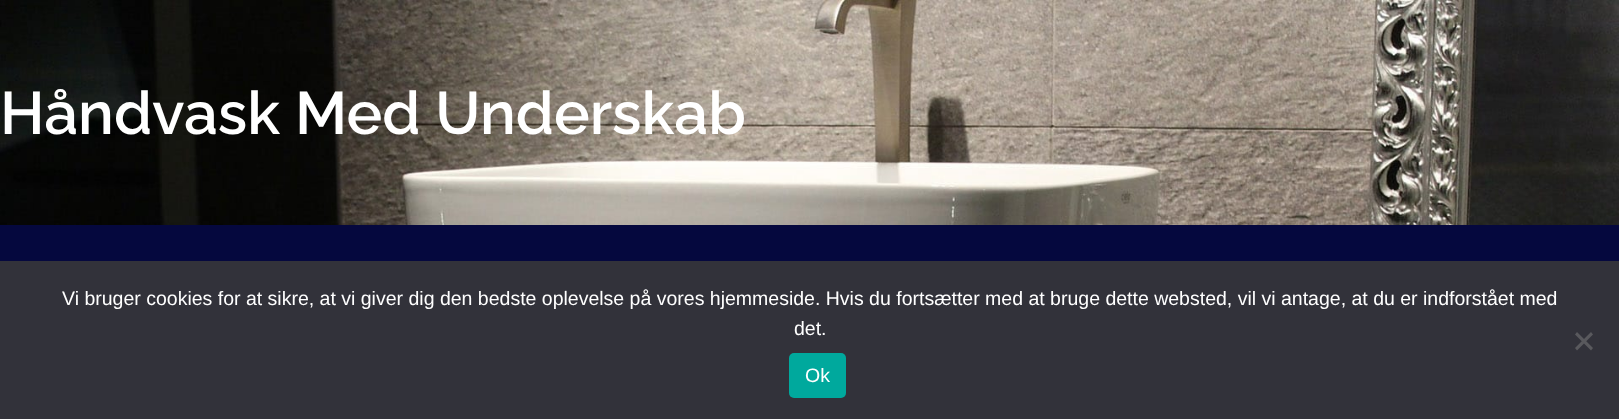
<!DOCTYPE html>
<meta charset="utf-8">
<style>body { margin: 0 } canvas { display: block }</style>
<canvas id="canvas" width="1619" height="419"></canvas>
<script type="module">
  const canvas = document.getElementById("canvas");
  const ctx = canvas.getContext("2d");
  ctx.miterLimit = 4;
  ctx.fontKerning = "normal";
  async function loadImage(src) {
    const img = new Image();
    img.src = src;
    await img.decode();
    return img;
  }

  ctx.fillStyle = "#ffffff";
  ctx.fillRect(0, 0, 1619, 419);
  ctx.drawImage(await loadImage("img1.png"), 0, 0, 1619, 225);
  ctx.font = "600 60px Raleway";
  ctx.fillText("Håndvask Med Underskab", 0, 134);
  ctx.fillStyle = "#05083e";
  ctx.fillRect(0, 225, 1619, 36);
  ctx.fillStyle = "#32323a";
  ctx.fillRect(0, 261, 1619, 158);
  ctx.font = "19.5px Liberation Sans";
  ctx.fillStyle = "#ffffff";
  ctx.fillText("Vi bruger cookies for at sikre, at vi giver dig den bedste oplevelse på vores hjemmeside. Hvis du fortsætter med at bruge dette websted, vil vi antage, at du er indforstået med", 62, 305);
  ctx.fillText("det.", 794, 335);
  ctx.fillStyle = "#59595d";
  ctx.beginPath();
  ctx.moveTo(1591, 332);
  ctx.lineTo(1593, 334.5);
  ctx.lineTo(1577, 350.5);
  ctx.lineTo(1575, 348);
  ctx.closePath();
  ctx.fill();
  ctx.beginPath();
  ctx.moveTo(1575, 334.5);
  ctx.lineTo(1577, 332);
  ctx.lineTo(1593, 348);
  ctx.lineTo(1591, 350.5);
  ctx.closePath();
  ctx.fill();
  ctx.fillStyle = "#00a99d";
  ctx.beginPath();
  ctx.roundRect(789, 353, 57, 45, 5);
  ctx.fill();
  ctx.fillStyle = "#ffffff";
  ctx.fillText("Ok", 805, 382);
</script>
